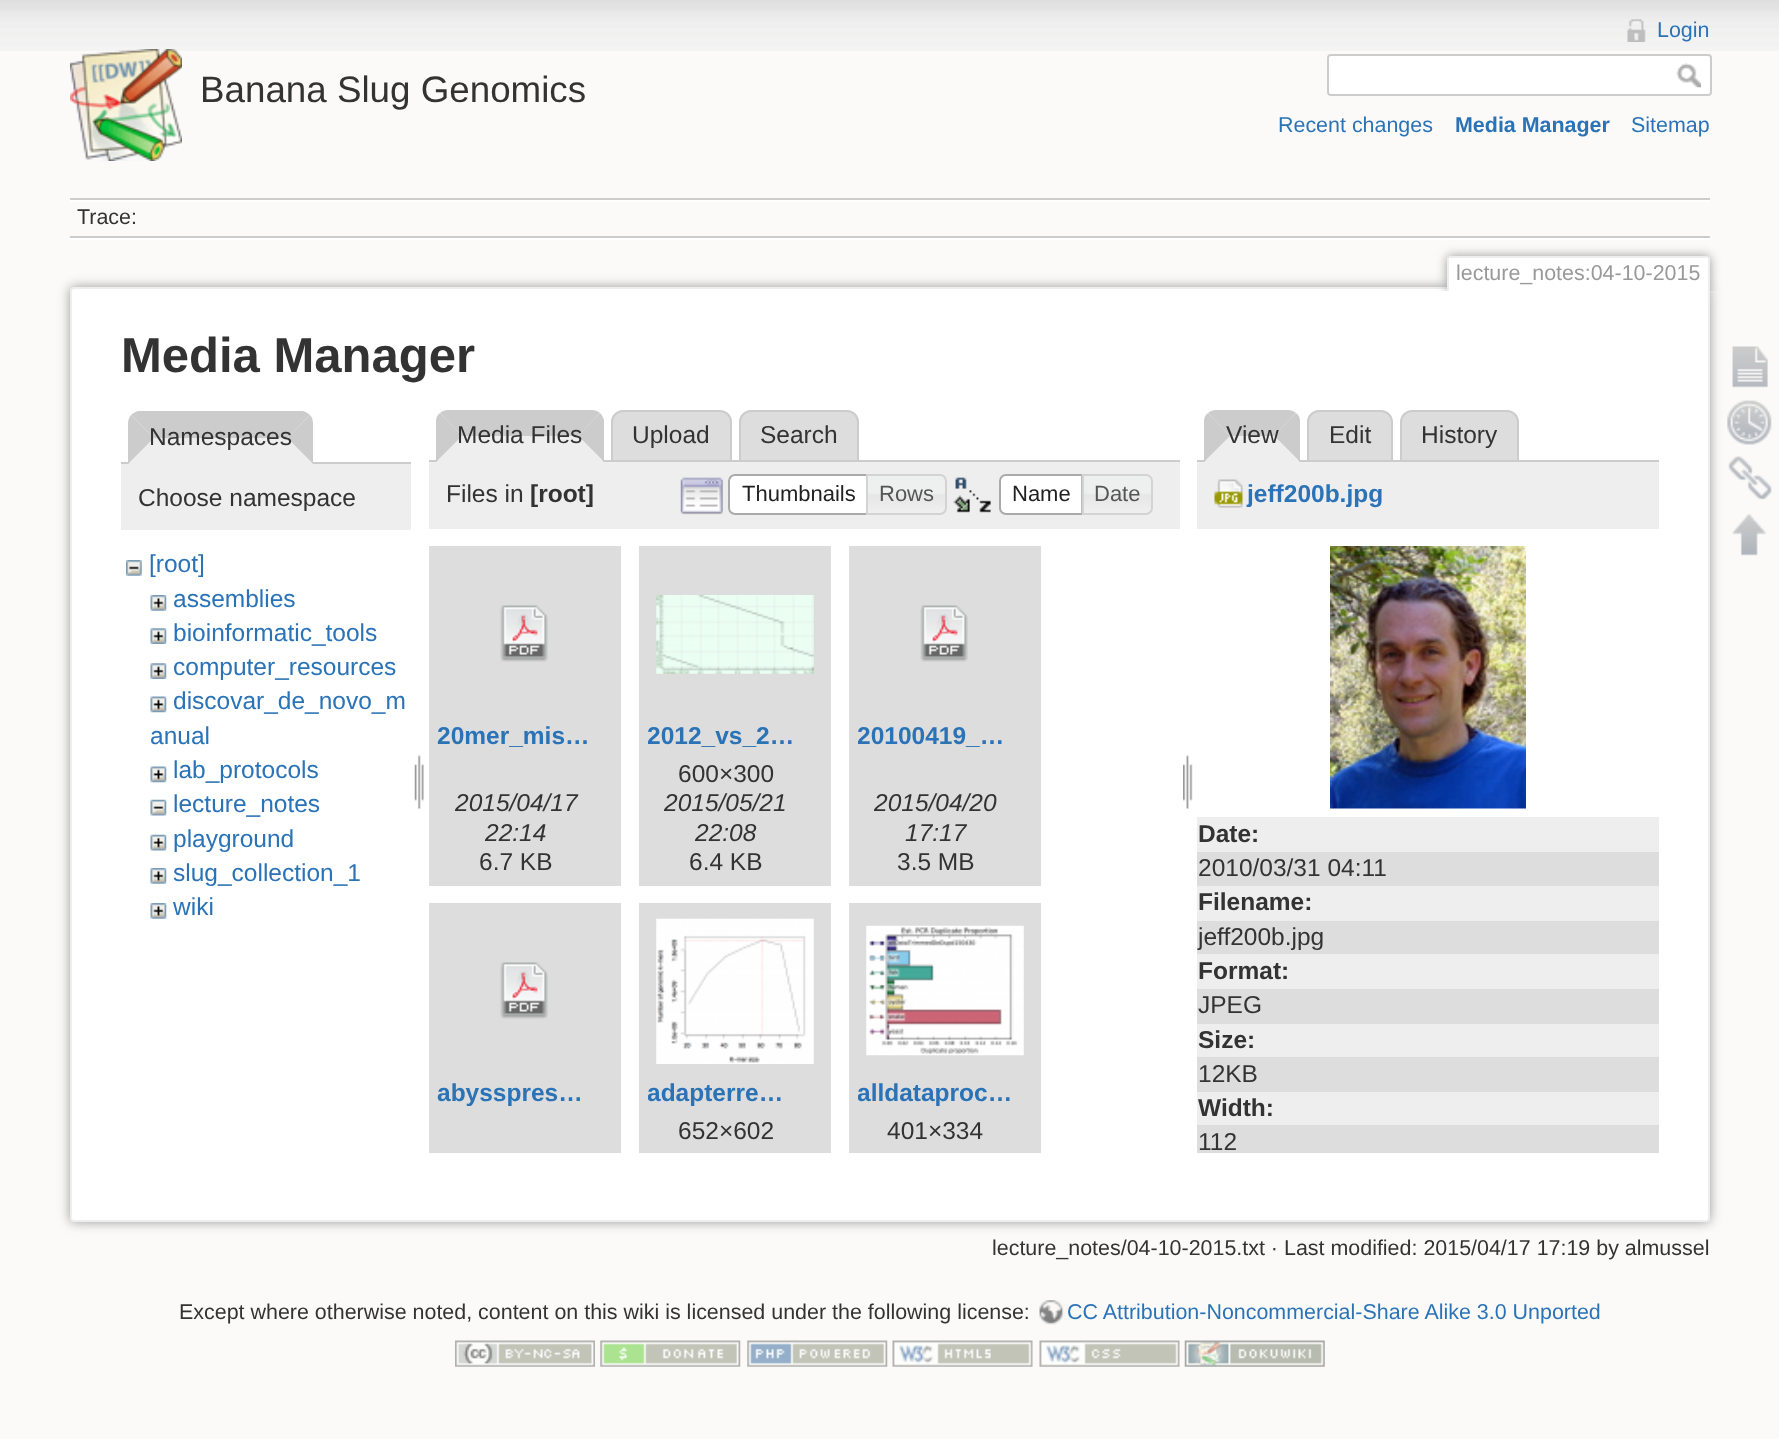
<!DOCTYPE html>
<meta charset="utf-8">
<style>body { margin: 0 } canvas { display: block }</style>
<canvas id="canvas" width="1779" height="1439"></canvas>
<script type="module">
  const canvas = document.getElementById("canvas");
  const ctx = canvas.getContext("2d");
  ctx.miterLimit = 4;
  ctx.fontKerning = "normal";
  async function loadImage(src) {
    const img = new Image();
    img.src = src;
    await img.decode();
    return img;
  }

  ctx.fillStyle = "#fbfaf9";
  ctx.fillRect(0, 0, 1779, 1439);
  ctx.drawImage(await loadImage("img1.png"), 0, 0, 1779, 51);
  ctx.drawImage(await loadImage("img2.png"), 70, 49, 112, 112);
  ctx.font = "36.75px Liberation Sans";
  ctx.fillStyle = "#333333";
  ctx.fillText("Banana Slug Genomics", 200, 102);
  ctx.drawImage(await loadImage("img3.png"), 1627, 19, 19, 23);
  ctx.font = "21.45px Liberation Sans";
  ctx.fillStyle = "#2b73b7";
  ctx.fillText("Login", 1657, 37);
  ctx.fillStyle = "#ffffff";
  ctx.beginPath();
  ctx.roundRect(1328, 55, 383, 40, 3);
  ctx.fill();
  ctx.strokeStyle = "#cccccc";
  ctx.lineWidth = 2;
  ctx.stroke();
  ctx.drawImage(await loadImage("img4.png"), 1676, 63, 25, 25);
  ctx.fillStyle = "#2b73b7";
  ctx.fillText("Recent changes", 1278, 132);
  ctx.font = "bold 21.45px Liberation Sans";
  ctx.fillText("Media Manager", 1455, 132);
  ctx.font = "21.45px Liberation Sans";
  ctx.fillText("Sitemap", 1631, 132);
  ctx.fillStyle = "#cccccc";
  ctx.fillRect(70, 198, 1640, 2);
  ctx.fillStyle = "#ffffff";
  ctx.fillRect(70, 238, 1640, 2);
  ctx.fillRect(70, 200, 1640, 2);
  ctx.fillStyle = "#cccccc";
  ctx.fillRect(70, 236, 1640, 2);
  ctx.fillStyle = "#333333";
  ctx.fillText("Trace:", 77, 224);
  ctx.fillStyle = "#999999";
  ctx.filter = "blur(6px)";
  ctx.beginPath();
  ctx.roundRect(70, 287, 1640, 935, 4);
  ctx.fill();
  ctx.filter = "none";
  ctx.fillStyle = "#ffffff";
  ctx.beginPath();
  ctx.roundRect(71, 288, 1638, 933, 3);
  ctx.fill();
  ctx.strokeStyle = "#eeeeee";
  ctx.stroke();
  ctx.save();
  ctx.beginPath();
  ctx.rect(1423, 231, 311, 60);
  ctx.clip();
  ctx.fillStyle = "#999999";
  ctx.filter = "blur(5.5px)";
  ctx.beginPath();
  ctx.roundRect(1447, 256, 263, 35, 4);
  ctx.fill();
  ctx.filter = "none";
  ctx.restore();
  ctx.beginPath();
  ctx.roundRect(1449, 257, 259, 34, [2, 2, 0, 0]);
  ctx.fill();
  ctx.fillStyle = "#eeeeee";
  ctx.fillRect(1449, 256, 259, 2);
  ctx.fillRect(1708, 257, 2, 34);
  ctx.fillRect(1447, 257, 2, 34);
  ctx.fillStyle = "#999999";
  ctx.fillText("lecture_notes:04-10-2015", 1456, 280);
  ctx.font = "bold 49px Liberation Sans";
  ctx.fillStyle = "#333333";
  ctx.fillText("Media Manager", 121, 372);
  ctx.fillStyle = "#cccccc";
  ctx.beginPath();
  ctx.moveTo(303, 411);
  ctx.lineTo(138, 411);
  ctx.bezierCurveTo(135, 412, 133, 413, 131, 415);
  ctx.lineTo(154, 438);
  ctx.lineTo(287, 438);
  ctx.lineTo(310, 415);
  ctx.bezierCurveTo(308, 413, 306, 412, 303, 411);
  ctx.closePath();
  ctx.fill();
  ctx.fillRect(121, 462, 290, 2);
  ctx.beginPath();
  ctx.moveTo(310, 415);
  ctx.lineTo(287, 438);
  ctx.lineTo(313, 464);
  ctx.lineTo(313, 424);
  ctx.bezierCurveTo(313, 420, 312, 417, 310, 415);
  ctx.closePath();
  ctx.fill();
  ctx.fillStyle = "#eeeeee";
  ctx.beginPath();
  ctx.moveTo(313, 464);
  ctx.lineTo(287, 438);
  ctx.lineTo(154, 438);
  ctx.lineTo(128, 464);
  ctx.closePath();
  ctx.fill();
  ctx.fillStyle = "#cccccc";
  ctx.beginPath();
  ctx.moveTo(128, 464);
  ctx.lineTo(154, 438);
  ctx.lineTo(131, 415);
  ctx.bezierCurveTo(129, 417, 128, 420, 128, 424);
  ctx.closePath();
  ctx.fill();
  ctx.font = "24.5px Liberation Sans";
  ctx.fillStyle = "#333333";
  ctx.fillText("Namespaces", 149, 445);
  ctx.fillStyle = "#eeeeee";
  ctx.fillRect(121, 464, 290, 66);
  ctx.fillStyle = "#333333";
  ctx.fillText("Choose namespace", 138, 506);
  ctx.drawImage(await loadImage("img5.png"), 126, 560, 16, 16);
  ctx.fillStyle = "#2b73b7";
  ctx.fillText("[root]", 149, 572);
  ctx.drawImage(await loadImage("img6.png"), 150, 595, 17, 16);
  ctx.fillText("assemblies", 173, 607);
  ctx.drawImage(await loadImage("img7.png"), 150, 628, 17, 16);
  ctx.fillText("bioinformatic_tools", 173, 641);
  ctx.drawImage(await loadImage("img7.png"), 150, 663, 17, 16);
  ctx.fillText("computer_resources", 173, 675);
  ctx.drawImage(await loadImage("img8.png"), 150, 696, 17, 17);
  ctx.fillText("discovar_de_novo_m", 173, 709);
  ctx.fillText("anual", 150, 744);
  ctx.drawImage(await loadImage("img8.png"), 150, 766, 17, 17);
  ctx.fillText("lab_protocols", 173, 778);
  ctx.drawImage(await loadImage("img9.png"), 150, 799, 17, 17);
  ctx.fillText("lecture_notes", 173, 812);
  ctx.drawImage(await loadImage("img10.png"), 150, 834, 17, 17);
  ctx.fillText("playground", 173, 847);
  ctx.drawImage(await loadImage("img6.png"), 150, 868, 17, 16);
  ctx.fillText("slug_collection_1", 173, 881);
  ctx.drawImage(await loadImage("img6.png"), 150, 903, 17, 16);
  ctx.fillText("wiki", 173, 915);
  ctx.drawImage(await loadImage("img11.png"), 414, 754, 10, 55);
  ctx.fillStyle = "#cccccc";
  ctx.beginPath();
  ctx.moveTo(448, 410);
  ctx.bezierCurveTo(445, 410, 442, 411, 440, 413);
  ctx.lineTo(462, 436);
  ctx.lineTo(578, 436);
  ctx.lineTo(600, 413);
  ctx.bezierCurveTo(598, 411, 595, 410, 592, 410);
  ctx.closePath();
  ctx.fill();
  ctx.fillStyle = "#dddddd";
  ctx.beginPath();
  ctx.roundRect(612, 411, 119, 50, [11, 11, 0, 0]);
  ctx.fill();
  ctx.strokeStyle = "#cccccc";
  ctx.stroke();
  ctx.beginPath();
  ctx.roundRect(740, 411, 118, 50, [11, 11, 0, 0]);
  ctx.fill();
  ctx.stroke();
  ctx.fillStyle = "#cccccc";
  ctx.fillRect(429, 460, 751, 2);
  ctx.beginPath();
  ctx.moveTo(604, 420);
  ctx.lineTo(604, 462);
  ctx.lineTo(578, 436);
  ctx.lineTo(600, 413);
  ctx.bezierCurveTo(602, 415, 603, 417, 604, 420);
  ctx.closePath();
  ctx.fill();
  ctx.fillStyle = "#eeeeee";
  ctx.beginPath();
  ctx.moveTo(604, 462);
  ctx.lineTo(578, 436);
  ctx.lineTo(462, 436);
  ctx.lineTo(436, 462);
  ctx.closePath();
  ctx.fill();
  ctx.fillStyle = "#cccccc";
  ctx.beginPath();
  ctx.moveTo(440, 413);
  ctx.bezierCurveTo(437, 415, 436, 418, 436, 422);
  ctx.lineTo(436, 462);
  ctx.lineTo(462, 436);
  ctx.closePath();
  ctx.fill();
  ctx.fillStyle = "#333333";
  ctx.fillText("Media Files", 457, 443);
  ctx.fillText("Upload", 632, 443);
  ctx.fillText("Search", 760, 443);
  ctx.fillStyle = "#eeeeee";
  ctx.fillRect(429, 462, 751, 67);
  ctx.fillStyle = "#333333";
  ctx.fillText("Files in", 446, 502);
  ctx.font = "bold 24.5px Liberation Sans";
  ctx.fillText("[root]", 530, 502);
  ctx.drawImage(await loadImage("img12.png"), 680, 477, 43, 38);
  ctx.fillStyle = "#ffffff";
  ctx.beginPath();
  ctx.roundRect(728, 474, 140, 41, [7, 0, 0, 7]);
  ctx.fill();
  ctx.fillStyle = "#f8f8f8";
  ctx.fillRect(729, 476, 1, 1);
  ctx.beginPath();
  ctx.roundRect(729, 475, 138, 39, [6, 0, 0, 6]);
  ctx.strokeStyle = "#aaaaaa";
  ctx.stroke();
  ctx.font = "22px Liberation Sans";
  ctx.fillStyle = "#212121";
  ctx.fillText("Thumbnails", 742, 501);
  ctx.drawImage(await loadImage("img13.png"), 868, 474, 79, 40);
  ctx.beginPath();
  ctx.roundRect(867, 475, 79, 39, [0, 6, 6, 0]);
  ctx.strokeStyle = "#d3d3d3";
  ctx.stroke();
  ctx.fillStyle = "#555555";
  ctx.fillText("Rows", 879, 501);
  ctx.drawImage(await loadImage("img14.png"), 953, 477, 38, 36);
  ctx.fillStyle = "#ffffff";
  ctx.beginPath();
  ctx.roundRect(1000, 475, 82, 39, [6, 0, 0, 6]);
  ctx.fill();
  ctx.strokeStyle = "#aaaaaa";
  ctx.stroke();
  ctx.fillStyle = "#212121";
  ctx.fillText("Name", 1012, 501);
  ctx.drawImage(await loadImage("img15.png"), 1081, 474, 72, 41);
  ctx.beginPath();
  ctx.roundRect(1083, 475, 69, 39, [0, 6, 6, 0]);
  ctx.strokeStyle = "#d3d3d3";
  ctx.stroke();
  ctx.fillStyle = "#555555";
  ctx.fillText("Date", 1094, 501);
  ctx.fillStyle = "#dddddd";
  ctx.fillRect(429, 546, 192, 340);
  ctx.drawImage(await loadImage("img16.png"), 500, 605, 48, 57);
  ctx.font = "bold 24.5px Liberation Sans";
  ctx.fillStyle = "#2b73b7";
  ctx.fillText("20mer_mis…", 437, 744);
  ctx.font = "italic 24.5px Liberation Sans";
  ctx.fillStyle = "#333333";
  ctx.fillText("2015/04/17", 455, 811);
  ctx.fillText("22:14", 485, 841);
  ctx.font = "24.5px Liberation Sans";
  ctx.fillText("6.7 KB", 479, 870);
  ctx.fillStyle = "#dddddd";
  ctx.fillRect(639, 546, 192, 340);
  ctx.drawImage(await loadImage("img17.png"), 656, 595, 158, 79);
  ctx.save();
  ctx.beginPath();
  ctx.rect(648, 712, 157, 48);
  ctx.clip();
  ctx.font = "bold 24.5px Liberation Sans";
  ctx.fillStyle = "#2b73b7";
  ctx.fillText("2012_vs_2…", 647, 744);
  ctx.restore();
  ctx.fillStyle = "#333333";
  ctx.fillText("600×300", 678, 782);
  ctx.font = "italic 24.5px Liberation Sans";
  ctx.fillText("2015/05/21", 664, 811);
  ctx.fillText("22:08", 695, 841);
  ctx.font = "24.5px Liberation Sans";
  ctx.fillText("6.4 KB", 689, 870);
  ctx.fillStyle = "#dddddd";
  ctx.fillRect(849, 546, 192, 340);
  ctx.drawImage(await loadImage("img18.png"), 920, 605, 48, 57);
  ctx.save();
  ctx.beginPath();
  ctx.rect(858, 712, 157, 48);
  ctx.clip();
  ctx.font = "bold 24.5px Liberation Sans";
  ctx.fillStyle = "#2b73b7";
  ctx.fillText("20100419_…", 857, 744);
  ctx.restore();
  ctx.font = "italic 24.5px Liberation Sans";
  ctx.fillStyle = "#333333";
  ctx.fillText("2015/04/20", 874, 811);
  ctx.fillText("17:17", 905, 841);
  ctx.font = "24.5px Liberation Sans";
  ctx.fillText("3.5 MB", 897, 870);
  ctx.fillStyle = "#dddddd";
  ctx.fillRect(429, 903, 192, 250);
  ctx.drawImage(await loadImage("img16.png"), 500, 962, 48, 57);
  ctx.font = "bold 24.5px Liberation Sans";
  ctx.fillStyle = "#2b73b7";
  ctx.fillText("abysspres…", 437, 1101);
  ctx.fillStyle = "#dddddd";
  ctx.fillRect(639, 903, 192, 250);
  ctx.drawImage(await loadImage("img19.png"), 656, 918, 158, 146);
  ctx.save();
  ctx.beginPath();
  ctx.rect(648, 1069, 157, 48);
  ctx.clip();
  ctx.fillStyle = "#2b73b7";
  ctx.fillText("adapterre…", 647, 1101);
  ctx.restore();
  ctx.font = "24.5px Liberation Sans";
  ctx.fillStyle = "#333333";
  ctx.fillText("652×602", 678, 1139);
  ctx.fillStyle = "#dddddd";
  ctx.fillRect(849, 903, 192, 250);
  ctx.drawImage(await loadImage("img20.png"), 866, 925, 158, 131);
  ctx.save();
  ctx.beginPath();
  ctx.rect(858, 1069, 157, 48);
  ctx.clip();
  ctx.font = "bold 24.5px Liberation Sans";
  ctx.fillStyle = "#2b73b7";
  ctx.fillText("alldataproc…", 857, 1101);
  ctx.restore();
  ctx.fillStyle = "#333333";
  ctx.fillText("401×334", 887, 1139);
  ctx.drawImage(await loadImage("img21.png"), 1183, 754, 10, 55);
  ctx.fillStyle = "#cccccc";
  ctx.beginPath();
  ctx.moveTo(1216, 410);
  ctx.bezierCurveTo(1213, 410, 1210, 411, 1208, 413);
  ctx.lineTo(1230, 436);
  ctx.lineTo(1274, 436);
  ctx.lineTo(1296, 413);
  ctx.bezierCurveTo(1294, 411, 1291, 410, 1288, 410);
  ctx.closePath();
  ctx.fill();
  ctx.fillStyle = "#dddddd";
  ctx.beginPath();
  ctx.roundRect(1308, 411, 84, 50, [11, 11, 0, 0]);
  ctx.fill();
  ctx.strokeStyle = "#cccccc";
  ctx.stroke();
  ctx.beginPath();
  ctx.roundRect(1401, 411, 117, 50, [11, 11, 0, 0]);
  ctx.fill();
  ctx.stroke();
  ctx.fillStyle = "#cccccc";
  ctx.fillRect(1197, 460, 462, 2);
  ctx.beginPath();
  ctx.moveTo(1300, 462);
  ctx.lineTo(1300, 422);
  ctx.bezierCurveTo(1300, 418, 1299, 415, 1296, 413);
  ctx.lineTo(1274, 436);
  ctx.closePath();
  ctx.fill();
  ctx.fillStyle = "#eeeeee";
  ctx.beginPath();
  ctx.moveTo(1300, 462);
  ctx.lineTo(1274, 436);
  ctx.lineTo(1230, 436);
  ctx.lineTo(1204, 462);
  ctx.closePath();
  ctx.fill();
  ctx.fillStyle = "#cccccc";
  ctx.beginPath();
  ctx.moveTo(1204, 462);
  ctx.lineTo(1230, 436);
  ctx.lineTo(1208, 413);
  ctx.bezierCurveTo(1205, 415, 1204, 418, 1204, 422);
  ctx.closePath();
  ctx.fill();
  ctx.fillStyle = "#333333";
  ctx.fillText("View", 1226, 443);
  ctx.fillText("Edit", 1329, 443);
  ctx.fillText("History", 1421, 443);
  ctx.fillStyle = "#eeeeee";
  ctx.fillRect(1197, 462, 462, 67);
  ctx.drawImage(await loadImage("img22.png"), 1214, 479, 29, 29);
  ctx.font = "bold 24.5px Liberation Sans";
  ctx.fillStyle = "#2b73b7";
  ctx.fillText("jeff200b.jpg", 1247, 502);
  ctx.drawImage(await loadImage("img23.png"), 1330, 546, 196, 263);
  ctx.fillStyle = "#eeeeee";
  ctx.fillRect(1197, 817, 462, 35);
  ctx.fillStyle = "#333333";
  ctx.fillText("Date:", 1198, 842);
  ctx.fillStyle = "#dddddd";
  ctx.fillRect(1197, 852, 462, 34);
  ctx.font = "24.5px Liberation Sans";
  ctx.fillStyle = "#333333";
  ctx.fillText("2010/03/31 04:11", 1198, 876);
  ctx.fillStyle = "#eeeeee";
  ctx.fillRect(1197, 886, 462, 35);
  ctx.font = "bold 24.5px Liberation Sans";
  ctx.fillStyle = "#333333";
  ctx.fillText("Filename:", 1198, 910);
  ctx.fillStyle = "#dddddd";
  ctx.fillRect(1197, 921, 462, 33);
  ctx.font = "24.5px Liberation Sans";
  ctx.fillStyle = "#333333";
  ctx.fillText("jeff200b.jpg", 1198, 945);
  ctx.fillStyle = "#eeeeee";
  ctx.fillRect(1197, 954, 462, 35);
  ctx.font = "bold 24.5px Liberation Sans";
  ctx.fillStyle = "#333333";
  ctx.fillText("Format:", 1198, 979);
  ctx.fillStyle = "#dddddd";
  ctx.fillRect(1197, 989, 462, 35);
  ctx.font = "24.5px Liberation Sans";
  ctx.fillStyle = "#333333";
  ctx.fillText("JPEG", 1198, 1013);
  ctx.fillStyle = "#eeeeee";
  ctx.fillRect(1197, 1024, 462, 33);
  ctx.font = "bold 24.5px Liberation Sans";
  ctx.fillStyle = "#333333";
  ctx.fillText("Size:", 1198, 1048);
  ctx.fillStyle = "#dddddd";
  ctx.fillRect(1197, 1057, 462, 35);
  ctx.font = "24.5px Liberation Sans";
  ctx.fillStyle = "#333333";
  ctx.fillText("12KB", 1198, 1082);
  ctx.fillStyle = "#eeeeee";
  ctx.fillRect(1197, 1092, 462, 33);
  ctx.font = "bold 24.5px Liberation Sans";
  ctx.fillStyle = "#333333";
  ctx.fillText("Width:", 1198, 1116);
  ctx.fillStyle = "#dddddd";
  ctx.fillRect(1197, 1125, 462, 28);
  ctx.font = "24.5px Liberation Sans";
  ctx.fillStyle = "#333333";
  ctx.fillText("112", 1198, 1150);
  ctx.font = "21.45px Liberation Sans";
  ctx.fillText("lecture_notes/04-10-2015.txt · Last modified: 2015/04/17 17:19 by almussel", 992, 1255);
  ctx.drawImage(await loadImage("img24.png"), 1732, 346, 36, 42);
  ctx.drawImage(await loadImage("img25.png"), 1727, 400, 45, 45);
  ctx.drawImage(await loadImage("img26.png"), 1728, 456, 44, 44);
  ctx.drawImage(await loadImage("img27.png"), 1732, 514, 34, 42);
  ctx.fillText("Except where otherwise noted, content on this wiki is licensed under the following license:", 179, 1319);
  ctx.drawImage(await loadImage("img28.png"), 1039, 1300, 25, 25);
  ctx.fillStyle = "#2b73b7";
  ctx.fillText("CC Attribution-Noncommercial-Share Alike 3.0 Unported", 1067, 1319);
  ctx.drawImage(await loadImage("img29.png"), 455, 1340, 140, 27);
  ctx.drawImage(await loadImage("img30.png"), 600, 1340, 141, 27);
  ctx.drawImage(await loadImage("img31.png"), 747, 1340, 141, 27);
  ctx.drawImage(await loadImage("img32.png"), 892, 1340, 141, 27);
  ctx.drawImage(await loadImage("img33.png"), 1039, 1340, 141, 27);
  ctx.drawImage(await loadImage("img34.png"), 1184, 1340, 141, 27);
</script>
